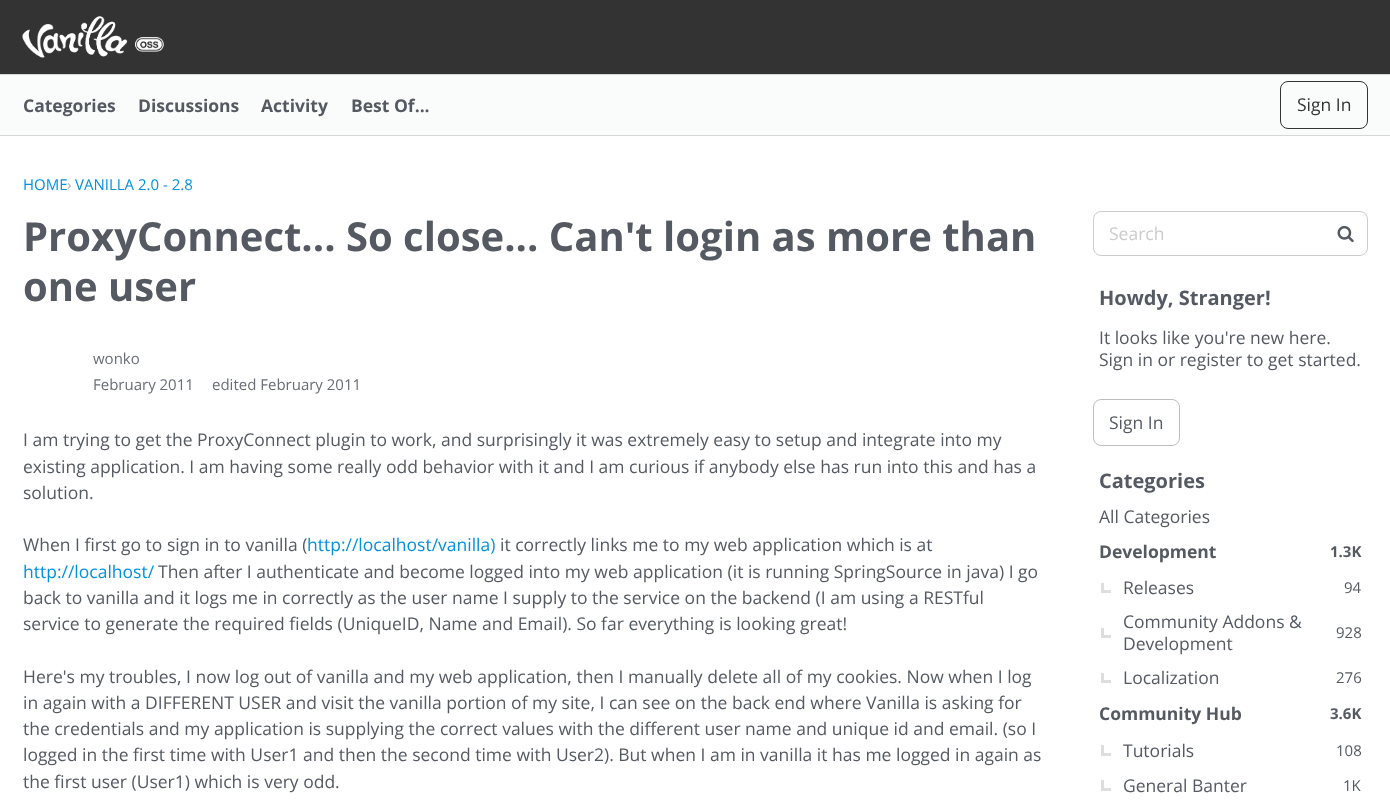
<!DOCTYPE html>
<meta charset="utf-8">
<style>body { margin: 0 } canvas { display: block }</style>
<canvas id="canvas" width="1390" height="811"></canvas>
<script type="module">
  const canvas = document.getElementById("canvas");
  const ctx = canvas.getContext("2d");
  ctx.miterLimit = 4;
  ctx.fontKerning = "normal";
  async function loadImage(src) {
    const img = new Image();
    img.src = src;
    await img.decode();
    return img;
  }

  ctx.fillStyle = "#ffffff";
  ctx.fillRect(0, 0, 1390, 811);
  ctx.fillStyle = "#333333";
  ctx.fillRect(0, 0, 1390, 74);
  ctx.fillStyle = "#d6d7d9";
  ctx.fillRect(0, 74, 1390, 1);
  ctx.drawImage(await loadImage("img1.png"), 22, 16, 142, 42);
  ctx.fillStyle = "#fafbfb";
  ctx.fillRect(0, 75, 1390, 60);
  ctx.fillStyle = "#d6d7d9";
  ctx.fillRect(0, 135, 1390, 1);
  ctx.font = "bold 17.5px Open Sans";
  ctx.fillStyle = "#555a62";
  ctx.fillText("Categories", 23, 112);
  ctx.fillText("Discussions", 138, 112);
  ctx.fillText("Activity", 261, 112);
  ctx.fillText("Best Of...", 351, 112);
  ctx.beginPath();
  ctx.roundRect(1280.5, 81.5, 87, 47, 7.5);
  ctx.strokeStyle = "#333333";
  ctx.stroke();
  ctx.font = "17.5px Open Sans";
  ctx.fillStyle = "#333333";
  ctx.fillText("Sign In", 1297, 111);
  ctx.font = "15px Open Sans";
  ctx.fillStyle = "#0291db";
  ctx.fillText("HOME", 23, 190);
  ctx.fillStyle = "#aaadb1";
  ctx.fillText("›", 67, 190);
  ctx.fillStyle = "#0291db";
  ctx.fillText("VANILLA 2.0 - 2.8", 75, 190);
  ctx.font = "bold 40px Open Sans";
  ctx.fillStyle = "#555a62";
  ctx.fillText("ProxyConnect... So close... Can't login as more than", 23, 251);
  ctx.fillText("one user", 23, 301);
  ctx.font = "15px Open Sans";
  ctx.fillStyle = "#696e75";
  ctx.fillText("wonko", 93, 364);
  ctx.fillText("February 2011", 93, 390);
  ctx.fillText("edited February 2011", 212, 390);
  ctx.font = "17.5px Open Sans";
  ctx.fillStyle = "#555a62";
  ctx.fillText("I am trying to get the ProxyConnect plugin to work, and surprisingly it was extremely easy to setup and integrate into my", 23, 446);
  ctx.fillText("existing application. I am having some really odd behavior with it and I am curious if anybody else has run into this and has a", 23, 473);
  ctx.fillText("solution.", 23, 499);
  ctx.fillText("When I first go to sign in to vanilla (", 23, 551);
  ctx.fillStyle = "#0291db";
  ctx.fillText("http://localhost/vanilla)", 307, 551);
  ctx.fillStyle = "#555a62";
  ctx.fillText("it correctly links me to my web application which is at", 500, 551);
  ctx.fillStyle = "#0291db";
  ctx.fillText("http://localhost/", 23, 578);
  ctx.fillStyle = "#555a62";
  ctx.fillText("Then after I authenticate and become logged into my web application (it is running SpringSource in java) I go", 158, 578);
  ctx.fillText("back to vanilla and it logs me in correctly as the user name I supply to the service on the backend (I am using a RESTful", 23, 604);
  ctx.fillText("service to generate the required fields (UniqueID, Name and Email). So far everything is looking great!", 23, 630);
  ctx.fillText("Here's my troubles, I now log out of vanilla and my web application, then I manually delete all of my cookies. Now when I log", 23, 683);
  ctx.fillText("in again with a DIFFERENT USER and visit the vanilla portion of my site, I can see on the back end where Vanilla is asking for", 23, 709);
  ctx.fillText("the credentials and my application is supplying the correct values with the different user name and unique id and email. (so I", 23, 735);
  ctx.fillText("logged in the first time with User1 and then the second time with User2). But when I am in vanilla it has me logged in again as", 23, 761);
  ctx.fillText("the first user (User1) which is very odd.", 23, 788);
  ctx.beginPath();
  ctx.roundRect(1093.5, 211.5, 274, 44, 7.5);
  ctx.strokeStyle = "#cccccc";
  ctx.stroke();
  ctx.fillStyle = "#cccccc";
  ctx.fillText("Search", 1109, 240);
  ctx.drawImage(await loadImage("img2.png"), 1337, 226, 17, 17);
  ctx.font = "bold 20px Open Sans";
  ctx.fillStyle = "#555a62";
  ctx.fillText("Howdy, Stranger!", 1099, 305);
  ctx.font = "17.5px Open Sans";
  ctx.fillText("It looks like you're new here.", 1099, 344);
  ctx.fillText("Sign in or register to get started.", 1099, 366);
  ctx.beginPath();
  ctx.roundRect(1093.5, 399.5, 86, 46, 7.5);
  ctx.strokeStyle = "#bcbec1";
  ctx.stroke();
  ctx.fillText("Sign In", 1109, 429);
  ctx.font = "bold 20px Open Sans";
  ctx.fillText("Categories", 1099, 488);
  ctx.font = "17.5px Open Sans";
  ctx.fillText("All Categories", 1099, 523);
  ctx.font = "bold 17.5px Open Sans";
  ctx.fillText("Development", 1099, 558);
  ctx.font = "bold 15px Open Sans";
  ctx.fillText("1.3K", 1330, 557);
  ctx.fillStyle = "#dddee0";
  ctx.fillRect(1101, 590, 10, 3);
  ctx.fillRect(1101, 583, 3, 10);
  ctx.font = "17.5px Open Sans";
  ctx.fillStyle = "#555a62";
  ctx.fillText("Releases", 1123, 594);
  ctx.font = "15px Open Sans";
  ctx.fillText("94", 1344, 593);
  ctx.fillStyle = "#dddee0";
  ctx.fillRect(1101, 635, 10, 3);
  ctx.fillRect(1101, 628, 3, 10);
  ctx.font = "17.5px Open Sans";
  ctx.fillStyle = "#555a62";
  ctx.fillText("Community Addons &", 1123, 628);
  ctx.font = "15px Open Sans";
  ctx.fillText("928", 1336, 638);
  ctx.font = "17.5px Open Sans";
  ctx.fillText("Development", 1123, 650);
  ctx.fillStyle = "#dddee0";
  ctx.fillRect(1101, 680, 10, 3);
  ctx.fillRect(1101, 673, 3, 10);
  ctx.fillStyle = "#555a62";
  ctx.fillText("Localization", 1123, 684);
  ctx.font = "15px Open Sans";
  ctx.fillText("276", 1336, 683);
  ctx.font = "bold 17.5px Open Sans";
  ctx.fillText("Community Hub", 1099, 720);
  ctx.font = "bold 15px Open Sans";
  ctx.fillText("3.6K", 1330, 719);
  ctx.fillStyle = "#dddee0";
  ctx.fillRect(1101, 753, 10, 3);
  ctx.fillRect(1101, 745, 3, 10);
  ctx.font = "17.5px Open Sans";
  ctx.fillStyle = "#555a62";
  ctx.fillText("Tutorials", 1123, 757);
  ctx.font = "15px Open Sans";
  ctx.fillText("108", 1336, 756);
  ctx.fillStyle = "#dddee0";
  ctx.fillRect(1101, 788, 10, 3);
  ctx.fillRect(1101, 780, 3, 10);
  ctx.font = "17.5px Open Sans";
  ctx.fillStyle = "#555a62";
  ctx.fillText("General Banter", 1123, 792);
  ctx.font = "15px Open Sans";
  ctx.fillText("1K", 1343, 791);
</script>
